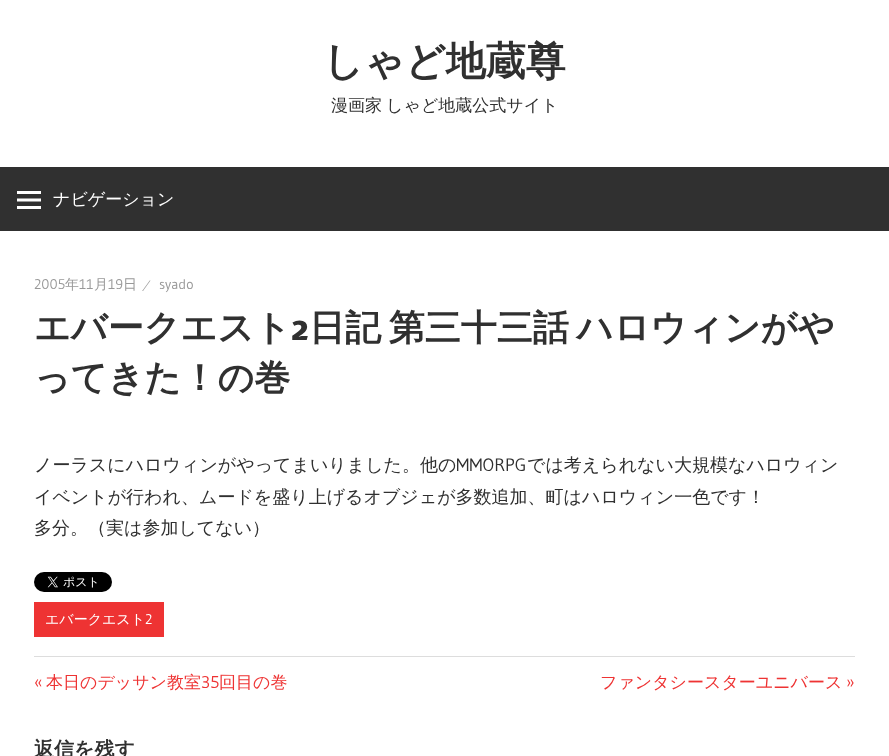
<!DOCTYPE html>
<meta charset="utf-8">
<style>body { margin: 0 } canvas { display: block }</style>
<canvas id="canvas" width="889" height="756"></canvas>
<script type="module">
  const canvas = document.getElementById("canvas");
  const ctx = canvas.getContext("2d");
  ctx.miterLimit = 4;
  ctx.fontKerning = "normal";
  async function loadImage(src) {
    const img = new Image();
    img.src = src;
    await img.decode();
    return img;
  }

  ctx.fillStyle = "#ffffff";
  ctx.fillRect(0, 0, 889, 756);
  ctx.font = "bold 40px WenQuanYi Zen Hei";
  ctx.fillStyle = "#303030";
  ctx.fillText("しゃど地蔵尊", 323, 75);
  ctx.wordSpacing = "-1px";
  ctx.font = "500 17px WenQuanYi Zen Hei";
  ctx.fillText("漫画家 しゃど地蔵公式サイト", 331, 111);
  ctx.fillRect(0, 167, 889, 64);
  ctx.drawImage(await loadImage("img1.png"), 17, 191, 24, 18);
  ctx.wordSpacing = "0px";
  ctx.fillStyle = "#ffffff";
  ctx.fillText("ナビゲーション", 53, 205);
  ctx.font = "14px Gudea";
  ctx.fillStyle = "#999999";
  ctx.fillText("2005", 34, 289);
  ctx.font = "500 14px WenQuanYi Zen Hei";
  ctx.fillText("年", 65, 289);
  ctx.font = "14px Gudea";
  ctx.fillText("11", 79, 289);
  ctx.font = "500 14px WenQuanYi Zen Hei";
  ctx.fillText("月", 94, 289);
  ctx.font = "14px Gudea";
  ctx.fillText("19", 108, 289);
  ctx.font = "500 14px WenQuanYi Zen Hei";
  ctx.fillText("日", 123, 289);
  ctx.font = "16px Liberation Serif";
  ctx.fillText("⁄", 145, 291);
  ctx.font = "14px Gudea";
  ctx.fillText("syado", 159, 289);
  ctx.font = "bold 36px WenQuanYi Zen Hei";
  ctx.fillStyle = "#303030";
  ctx.fillText("エバークエスト", 34, 340);
  ctx.font = "600 36px Magra";
  ctx.fillText("2", 291, 340);
  ctx.wordSpacing = "-3px";
  ctx.font = "bold 36px WenQuanYi Zen Hei";
  ctx.fillText("日記 第三十三話 ハロウィンがや", 309, 340);
  ctx.wordSpacing = "0px";
  ctx.fillText("ってきた！の巻", 34, 390);
  ctx.font = "500 18px WenQuanYi Zen Hei";
  ctx.fillText("ノーラスにハロウィンがやってまいりました。他の", 34, 471);
  ctx.font = "18px Gudea";
  ctx.fillText("MMORPG", 456, 471);
  ctx.font = "500 18px WenQuanYi Zen Hei";
  ctx.fillText("では考えられない大規模なハロウィン", 527, 471);
  ctx.fillText("イベントが行われ、ムードを盛り上げるオブジェが多数追加、町はハロウィン一色です！", 34, 503);
  ctx.fillText("多分。（実は参加してない）", 34, 534);
  ctx.drawImage(await loadImage("img2.png"), 34, 572, 78, 20);
  ctx.fillStyle = "#ee3333";
  ctx.fillRect(34, 602, 130, 35);
  ctx.font = "500 14px WenQuanYi Zen Hei";
  ctx.fillStyle = "#ffffff";
  ctx.fillText("エバークエスト", 45, 624);
  ctx.font = "14px Gudea";
  ctx.fillText("2", 145, 624);
  ctx.fillStyle = "#dddddd";
  ctx.fillRect(34, 656, 821, 1);
  ctx.font = "17px Gudea";
  ctx.fillStyle = "#ee3333";
  ctx.fillText("«", 34, 688);
  ctx.font = "500 17px WenQuanYi Zen Hei";
  ctx.fillText("本日のデッサン教室", 46, 688);
  ctx.font = "17px Gudea";
  ctx.fillText("35", 201, 688);
  ctx.font = "500 17px WenQuanYi Zen Hei";
  ctx.fillText("回目の巻", 219, 688);
  ctx.fillText("ファンタシースターユニバース", 600, 688);
  ctx.font = "17px Gudea";
  ctx.fillText("»", 846, 688);
  ctx.font = "bold 20px WenQuanYi Zen Hei";
  ctx.fillStyle = "#303030";
  ctx.fillText("返信を残す", 34, 756);
</script>
